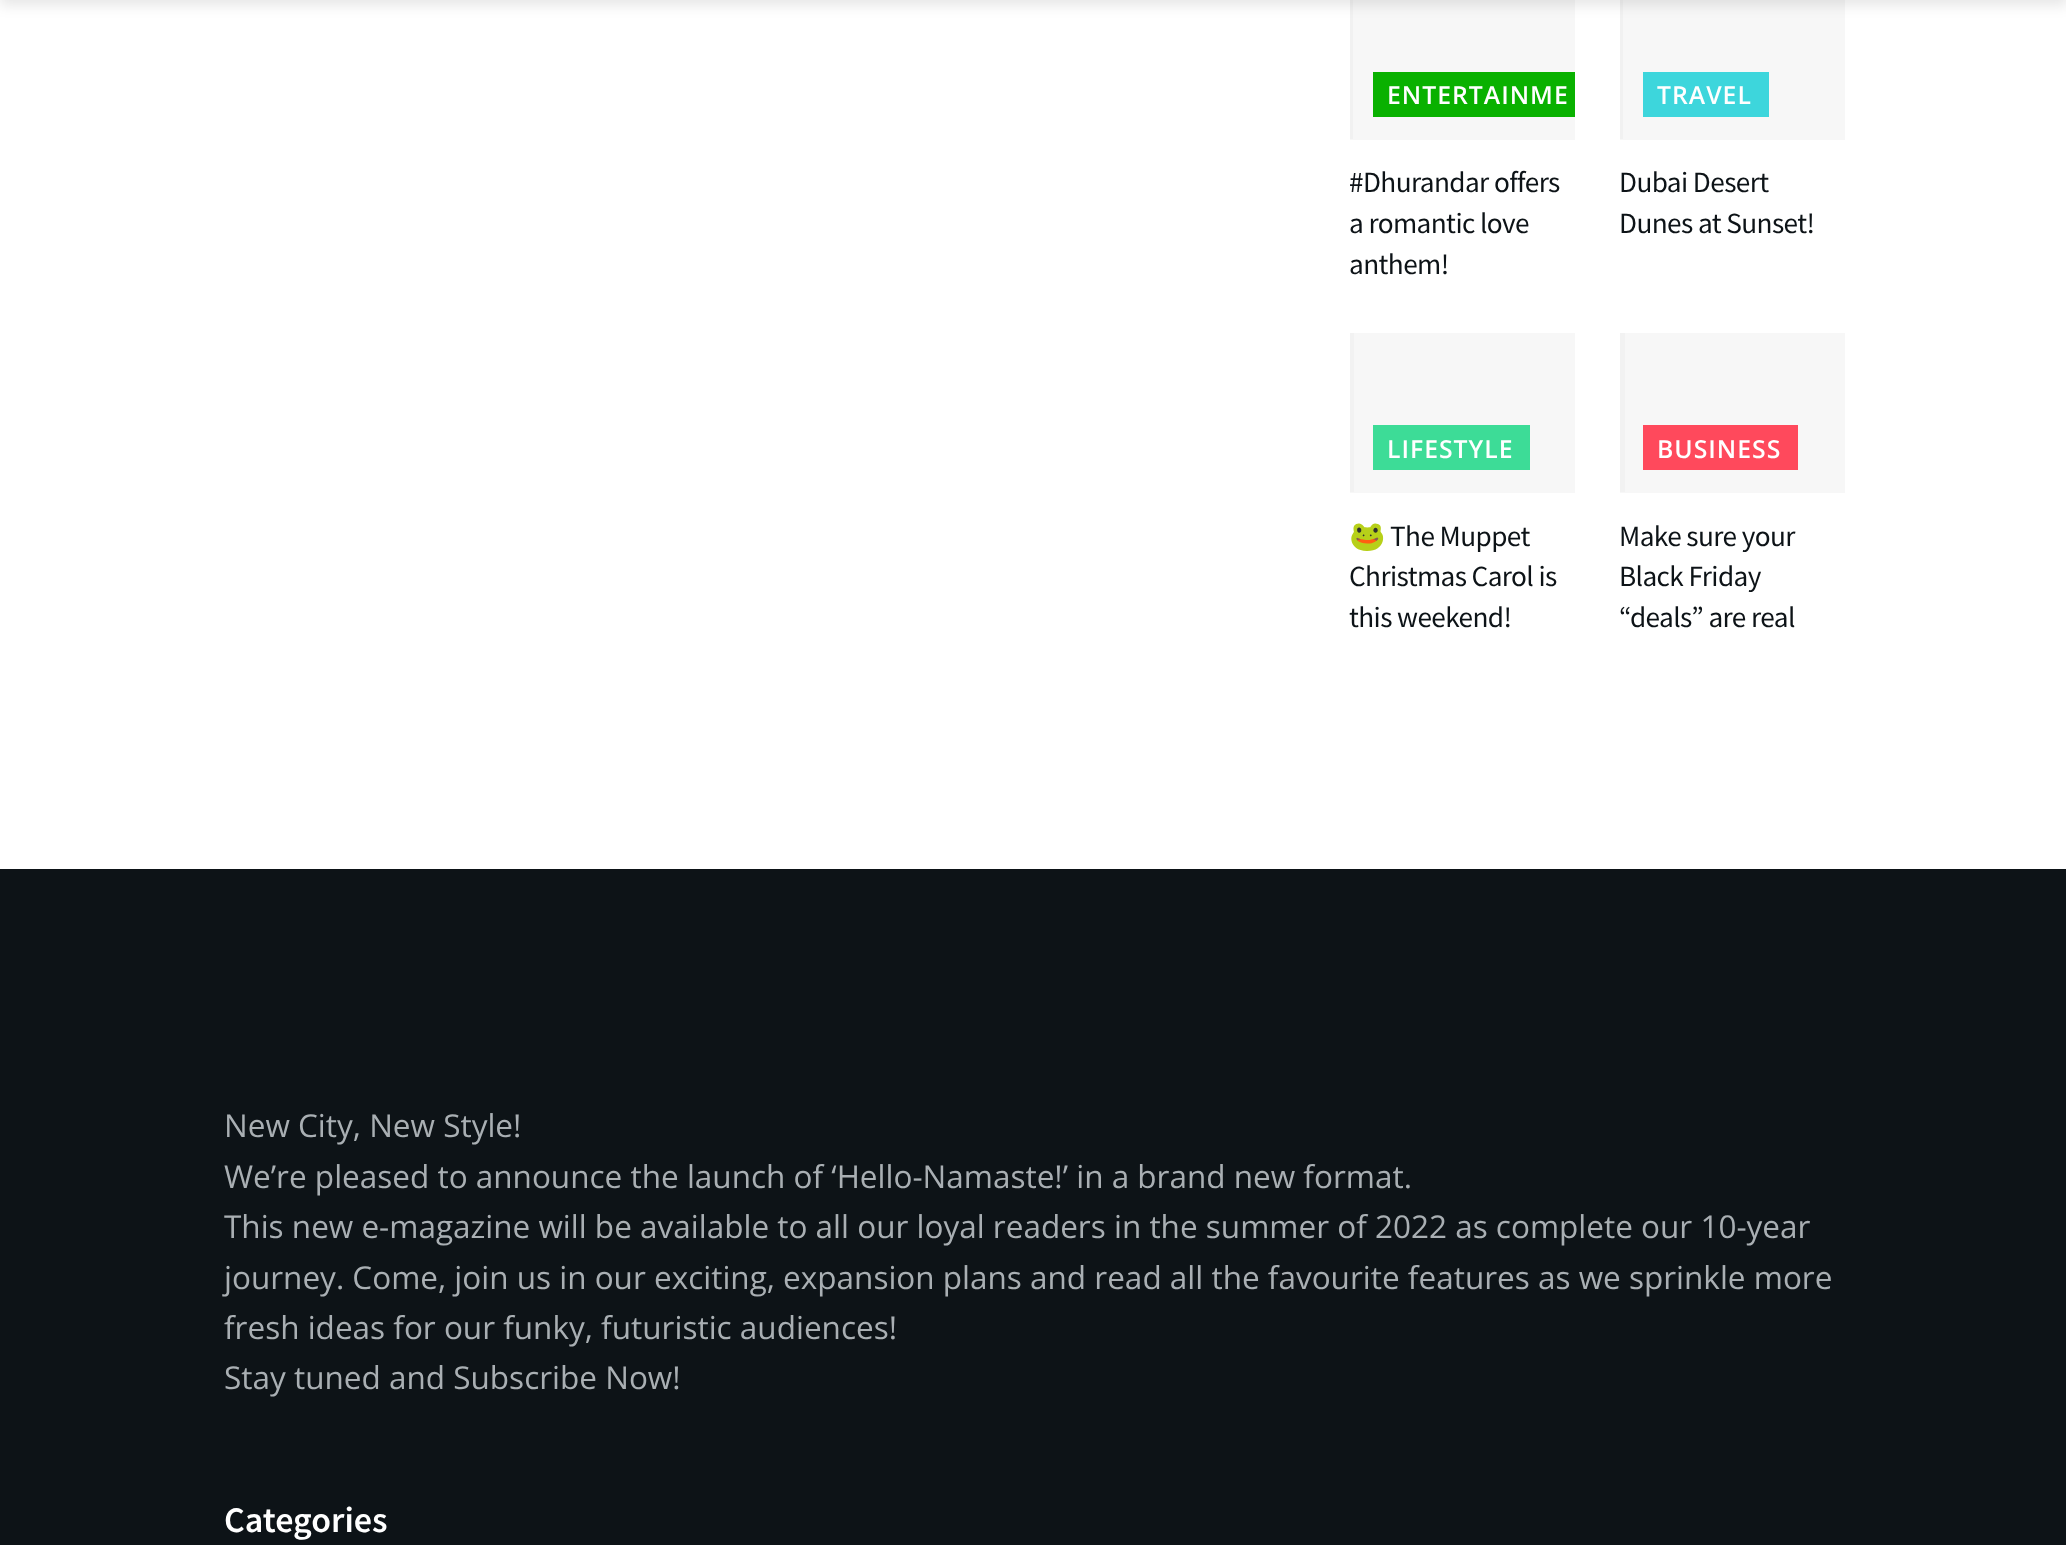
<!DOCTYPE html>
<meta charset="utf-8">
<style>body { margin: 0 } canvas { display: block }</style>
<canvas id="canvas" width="2066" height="1545"></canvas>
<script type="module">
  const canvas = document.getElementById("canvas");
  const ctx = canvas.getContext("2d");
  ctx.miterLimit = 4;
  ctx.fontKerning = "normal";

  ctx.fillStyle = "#0d1317";
  ctx.fillRect(0, 0, 2066, 1545);
  ctx.fillStyle = "#ffffff";
  ctx.fillRect(0, 0, 2066, 869);
  ctx.fillStyle = "#f7f7f7";
  ctx.fillRect(1350, 0, 225, 140);
  ctx.fillStyle = "#f1f1f1";
  ctx.fillRect(1350, 0, 3, 139);
  ctx.fillStyle = "#f7f7f7";
  ctx.fillRect(1620, 0, 225, 140);
  ctx.fillStyle = "#f1f1f1";
  ctx.fillRect(1620, 0, 3, 139);
  ctx.fillStyle = "rgba(0, 0, 0, 0.1)";
  ctx.filter = "blur(7px)";
  ctx.beginPath();
  ctx.rect(0, -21, 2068, 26);
  ctx.fill();
  ctx.filter = "none";
  ctx.fillStyle = "#09b100";
  ctx.fillRect(1373, 72, 202, 45);
  ctx.letterSpacing = "1px";
  ctx.font = "600 24.75px Open Sans";
  ctx.fillStyle = "#ffffff";
  ctx.fillText("ENTERTAINME", 1387, 104);
  ctx.letterSpacing = "-0.6px";
  ctx.font = "29.25px Source Sans Pro";
  ctx.fillStyle = "#0d1317";
  ctx.fillText("#Dhurandar offers", 1349, 192);
  ctx.fillText("a romantic love", 1349, 233);
  ctx.fillText("anthem!", 1349, 274);
  ctx.fillStyle = "#3dd6dc";
  ctx.fillRect(1643, 72, 126, 45);
  ctx.letterSpacing = "1px";
  ctx.font = "600 24.75px Open Sans";
  ctx.fillStyle = "#ffffff";
  ctx.fillText("TRAVEL", 1657, 104);
  ctx.letterSpacing = "-0.6px";
  ctx.font = "29.25px Source Sans Pro";
  ctx.fillStyle = "#0d1317";
  ctx.fillText("Dubai Desert", 1619, 192);
  ctx.fillText("Dunes at Sunset!", 1619, 233);
  ctx.fillStyle = "#f7f7f7";
  ctx.fillRect(1350, 333, 225, 160);
  ctx.fillStyle = "#f2f2f2";
  ctx.fillRect(1350, 333, 4, 159);
  ctx.fillStyle = "#3ddc97";
  ctx.fillRect(1373, 425, 157, 45);
  ctx.letterSpacing = "1px";
  ctx.font = "600 24.75px Open Sans";
  ctx.fillStyle = "#ffffff";
  ctx.fillText("LIFESTYLE", 1387, 458);
  ctx.save();
  ctx.beginPath();
  ctx.rect(1350, 0, 495, 686);
  ctx.clip();
  ctx.letterSpacing = "-0.6px";
  ctx.font = "29.25px Noto Color Emoji";
  ctx.fillStyle = "#0d1317";
  ctx.fillText("🐸", 1349, 546);
  ctx.restore();
  ctx.letterSpacing = "-0.6px";
  ctx.font = "29.25px Source Sans Pro";
  ctx.fillStyle = "#0d1317";
  ctx.fillText("The Muppet", 1390, 546);
  ctx.fillText("Christmas Carol is", 1349, 586);
  ctx.fillText("this weekend!", 1349, 627);
  ctx.fillStyle = "#f7f7f7";
  ctx.fillRect(1620, 333, 225, 160);
  ctx.fillStyle = "#f2f2f2";
  ctx.fillRect(1620, 333, 5, 159);
  ctx.fillStyle = "#ff495c";
  ctx.fillRect(1643, 425, 155, 45);
  ctx.letterSpacing = "1px";
  ctx.font = "600 24.75px Open Sans";
  ctx.fillStyle = "#ffffff";
  ctx.fillText("BUSINESS", 1657, 458);
  ctx.letterSpacing = "-0.6px";
  ctx.font = "29.25px Source Sans Pro";
  ctx.fillStyle = "#0d1317";
  ctx.fillText("Make sure your", 1619, 546);
  ctx.fillText("Black Friday", 1619, 586);
  ctx.fillText("“deals” are real", 1619, 627);
  ctx.letterSpacing = "0px";
  ctx.font = "31.5px Open Sans";
  ctx.fillStyle = "#a9afb3";
  ctx.fillText("New City, New Style!", 224, 1137);
  ctx.fillText("We’re pleased to announce the launch of ‘Hello-Namaste!’ in a brand new format.", 224, 1188);
  ctx.fillText("This new e-magazine will be available to all our loyal readers in the summer of 2022 as complete our 10-year", 224, 1238);
  ctx.fillText("journey. Come, join us in our exciting, expansion plans and read all the favourite features as we sprinkle more", 224, 1289);
  ctx.fillText("fresh ideas for our funky, futuristic audiences!", 224, 1339);
  ctx.fillText("Stay tuned and Subscribe Now!", 224, 1389);
  ctx.font = "600 36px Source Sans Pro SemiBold";
  ctx.fillStyle = "#ffffff";
  ctx.fillText("Categories", 224, 1532);
</script>
